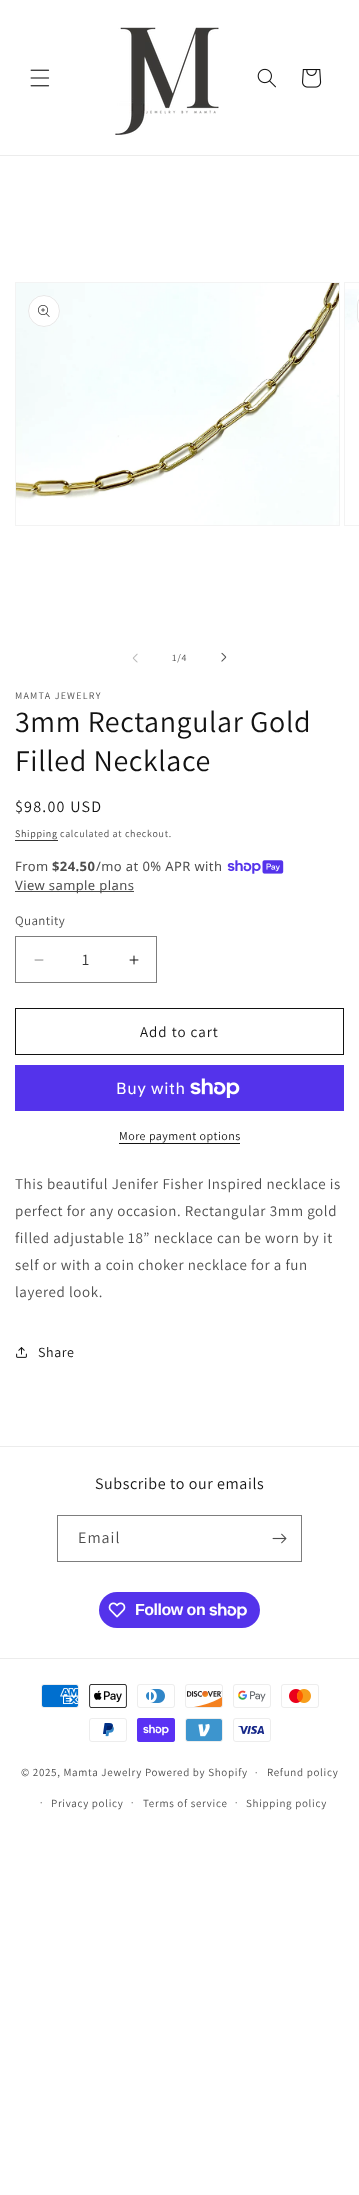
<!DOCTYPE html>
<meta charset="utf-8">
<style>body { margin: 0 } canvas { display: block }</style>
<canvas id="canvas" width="359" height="2195"></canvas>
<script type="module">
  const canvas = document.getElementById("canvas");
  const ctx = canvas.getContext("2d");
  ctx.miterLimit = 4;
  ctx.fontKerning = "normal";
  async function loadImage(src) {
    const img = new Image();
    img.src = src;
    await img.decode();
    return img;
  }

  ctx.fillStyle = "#ffffff";
  ctx.fillRect(0, 0, 359, 2195);
  ctx.fillStyle = "#ececec";
  ctx.fillRect(0, 155, 359, 1);
  ctx.drawImage(await loadImage("img1.png"), 30, 69, 20, 18);
  ctx.drawImage(await loadImage("img2.png"), 115, 27, 104, 108);
  ctx.drawImage(await loadImage("img3.png"), 257, 68, 19, 20);
  ctx.drawImage(await loadImage("img4.png"), 302, 69, 20, 19);
  ctx.strokeStyle = "#f3f3f3";
  ctx.strokeRect(15.5, 282.5, 324, 243);
  ctx.drawImage(await loadImage("img5.png"), 16, 283, 323, 242);
  ctx.fillStyle = "#ffffff";
  ctx.beginPath();
  ctx.arc(44, 311, 16, 0, Math.PI * 2);
  ctx.fill();
  ctx.beginPath();
  ctx.arc(44, 311, 15.5, 0, Math.PI * 2);
  ctx.strokeStyle = "rgba(18, 18, 18, 0.1)";
  ctx.stroke();
  ctx.drawImage(await loadImage("img6.png"), 38, 305, 12, 12);
  ctx.strokeStyle = "#f3f3f3";
  ctx.strokeRect(344.5, 282.5, 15, 243);
  ctx.drawImage(await loadImage("img7.png"), 345, 289, 14, 41);
  ctx.beginPath();
  ctx.roundRect(357, 295, 2, 32, [16, 0, 0, 16]);
  ctx.fill();
  ctx.beginPath();
  ctx.roundRect(357.5, 295.5, 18, 31, 15.5);
  ctx.strokeStyle = "rgba(18, 18, 18, 0.1)";
  ctx.stroke();
  ctx.drawImage(await loadImage("img8.png"), 132, 653, 6, 10);
  ctx.letterSpacing = "0.7px";
  ctx.font = "10px Assistant";
  ctx.fillStyle = "#4d4d4d";
  ctx.fillText("1/4", 172, 661);
  ctx.drawImage(await loadImage("img9.png"), 221, 652, 6, 10);
  ctx.letterSpacing = "1.25px";
  ctx.fillText("MAMTA JEWELRY", 15, 699);
  ctx.letterSpacing = "0.6px";
  ctx.font = "30px Assistant";
  ctx.fillStyle = "#121212";
  ctx.fillText("3mm Rectangular Gold", 15, 732);
  ctx.fillText("Filled Necklace", 15, 771);
  ctx.letterSpacing = "1.25px";
  ctx.font = "16px Assistant";
  ctx.fillText("$98.00 USD", 15, 812);
  ctx.letterSpacing = "0.7px";
  ctx.font = "10px Assistant";
  ctx.fillStyle = "#363636";
  ctx.fillText("Shipping", 15, 837);
  ctx.fillRect(15, 840, 43, 1);
  ctx.fillStyle = "#4d4d4d";
  ctx.fillText("calculated at checkout.", 60, 837);
  ctx.letterSpacing = "0.4px";
  ctx.font = "13px Noto Sans";
  ctx.fillText("From", 15, 871);
  ctx.font = "bold 13px Noto Sans";
  ctx.fillText("$24.50", 52, 871);
  ctx.font = "13px Noto Sans";
  ctx.fillText("/mo at 0% APR with", 96, 871);
  ctx.drawImage(await loadImage("img10.png"), 227, 860, 57, 14);
  ctx.fillRect(15, 891, 119, 1);
  ctx.fillText("View sample plans", 15, 890);
  ctx.font = "13px Assistant";
  ctx.fillText("Quantity", 15, 925);
  ctx.drawImage(await loadImage("img11.png"), 34, 959, 10, 2);
  ctx.drawImage(await loadImage("img12.png"), 129, 955, 10, 10);
  ctx.strokeStyle = "#7d7d7d";
  ctx.strokeRect(15.5, 936.5, 141, 46);
  ctx.letterSpacing = "0px";
  ctx.font = "16px Assistant";
  ctx.fillStyle = "#363636";
  ctx.fillText("1", 82, 965);
  ctx.strokeStyle = "#121212";
  ctx.strokeRect(15.5, 1008.5, 328, 46);
  ctx.letterSpacing = "1px";
  ctx.font = "15px Assistant";
  ctx.fillStyle = "#121212";
  ctx.fillText("Add to cart", 140, 1037);
  ctx.fillStyle = "#5433eb";
  ctx.fillRect(15, 1065, 329, 46);
  ctx.letterSpacing = "0.6px";
  ctx.font = "16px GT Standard";
  ctx.fillStyle = "#ffffff";
  ctx.fillText("Buy with", 116, 1094);
  ctx.drawImage(await loadImage("img13.png"), 190, 1078, 50, 20);
  ctx.letterSpacing = "0.5px";
  ctx.font = "12px Assistant";
  ctx.fillStyle = "#121212";
  ctx.fillText("More payment options", 119, 1140);
  ctx.fillRect(119, 1143, 121, 1);
  ctx.letterSpacing = "0.6px";
  ctx.font = "15px Assistant";
  ctx.fillStyle = "#4d4d4d";
  ctx.fillText("This beautiful Jenifer Fisher Inspired necklace is", 15, 1189);
  ctx.fillText("perfect for any occasion. Rectangular 3mm gold", 15, 1216);
  ctx.fillText("filled adjustable 18” necklace can be worn by it", 15, 1243);
  ctx.fillText("self or with a coin choker necklace for a fun", 15, 1270);
  ctx.fillText("layered look.", 15, 1297);
  ctx.drawImage(await loadImage("img14.png"), 16, 1347, 11, 11);
  ctx.font = "14px Assistant";
  ctx.fillStyle = "#121212";
  ctx.fillText("Share", 38, 1357);
  ctx.fillStyle = "#ececec";
  ctx.fillRect(0, 1446, 359, 1);
  ctx.font = "16px Assistant";
  ctx.fillStyle = "#121212";
  ctx.fillText("Subscribe to our emails", 95, 1489);
  ctx.strokeStyle = "#7d7d7d";
  ctx.strokeRect(57.5, 1515.5, 244, 46);
  ctx.letterSpacing = "1px";
  ctx.fillStyle = "#4d4d4d";
  ctx.fillText("Email", 78, 1543);
  ctx.drawImage(await loadImage("img15.png"), 272, 1533, 15, 11);
  ctx.fillStyle = "#5433eb";
  ctx.beginPath();
  ctx.roundRect(99, 1592, 161, 36, 18);
  ctx.fill();
  ctx.drawImage(await loadImage("img16.png"), 108, 1602, 18, 16);
  ctx.letterSpacing = "-0.5px";
  ctx.font = "bold 16px Liberation Sans";
  ctx.fillStyle = "#ffffff";
  ctx.fillText("Follow on", 135, 1615);
  ctx.drawImage(await loadImage("img17.png"), 209, 1603, 38, 16);
  ctx.fillStyle = "#ececec";
  ctx.fillRect(0, 1658, 359, 1);
  ctx.drawImage(await loadImage("img18.png"), 41, 1684, 38, 24);
  ctx.drawImage(await loadImage("img19.png"), 89, 1684, 38, 24);
  ctx.drawImage(await loadImage("img20.png"), 137, 1684, 38, 24);
  ctx.drawImage(await loadImage("img21.png"), 185, 1684, 38, 24);
  ctx.drawImage(await loadImage("img22.png"), 233, 1684, 38, 24);
  ctx.drawImage(await loadImage("img23.png"), 281, 1684, 38, 24);
  ctx.drawImage(await loadImage("img24.png"), 89, 1718, 38, 24);
  ctx.drawImage(await loadImage("img25.png"), 137, 1718, 38, 24);
  ctx.drawImage(await loadImage("img26.png"), 185, 1718, 38, 24);
  ctx.drawImage(await loadImage("img27.png"), 233, 1718, 38, 24);
  ctx.letterSpacing = "0.7px";
  ctx.font = "11px Assistant";
  ctx.fillStyle = "#4d4d4d";
  ctx.fillText("© 2025, Mamta Jewelry Powered by Shopify", 21, 1776);
  ctx.font = "10px Assistant";
  ctx.fillText("·", 255, 1776);
  ctx.font = "11px Assistant";
  ctx.fillText("Refund policy", 267, 1776);
  ctx.font = "10px Assistant";
  ctx.fillText("·", 40, 1806);
  ctx.font = "11px Assistant";
  ctx.fillText("Privacy policy", 51, 1807);
  ctx.font = "10px Assistant";
  ctx.fillText("·", 131, 1806);
  ctx.font = "11px Assistant";
  ctx.fillText("Terms of service", 143, 1807);
  ctx.font = "10px Assistant";
  ctx.fillText("·", 235, 1806);
  ctx.font = "11px Assistant";
  ctx.fillText("Shipping policy", 246, 1807);
</script>
